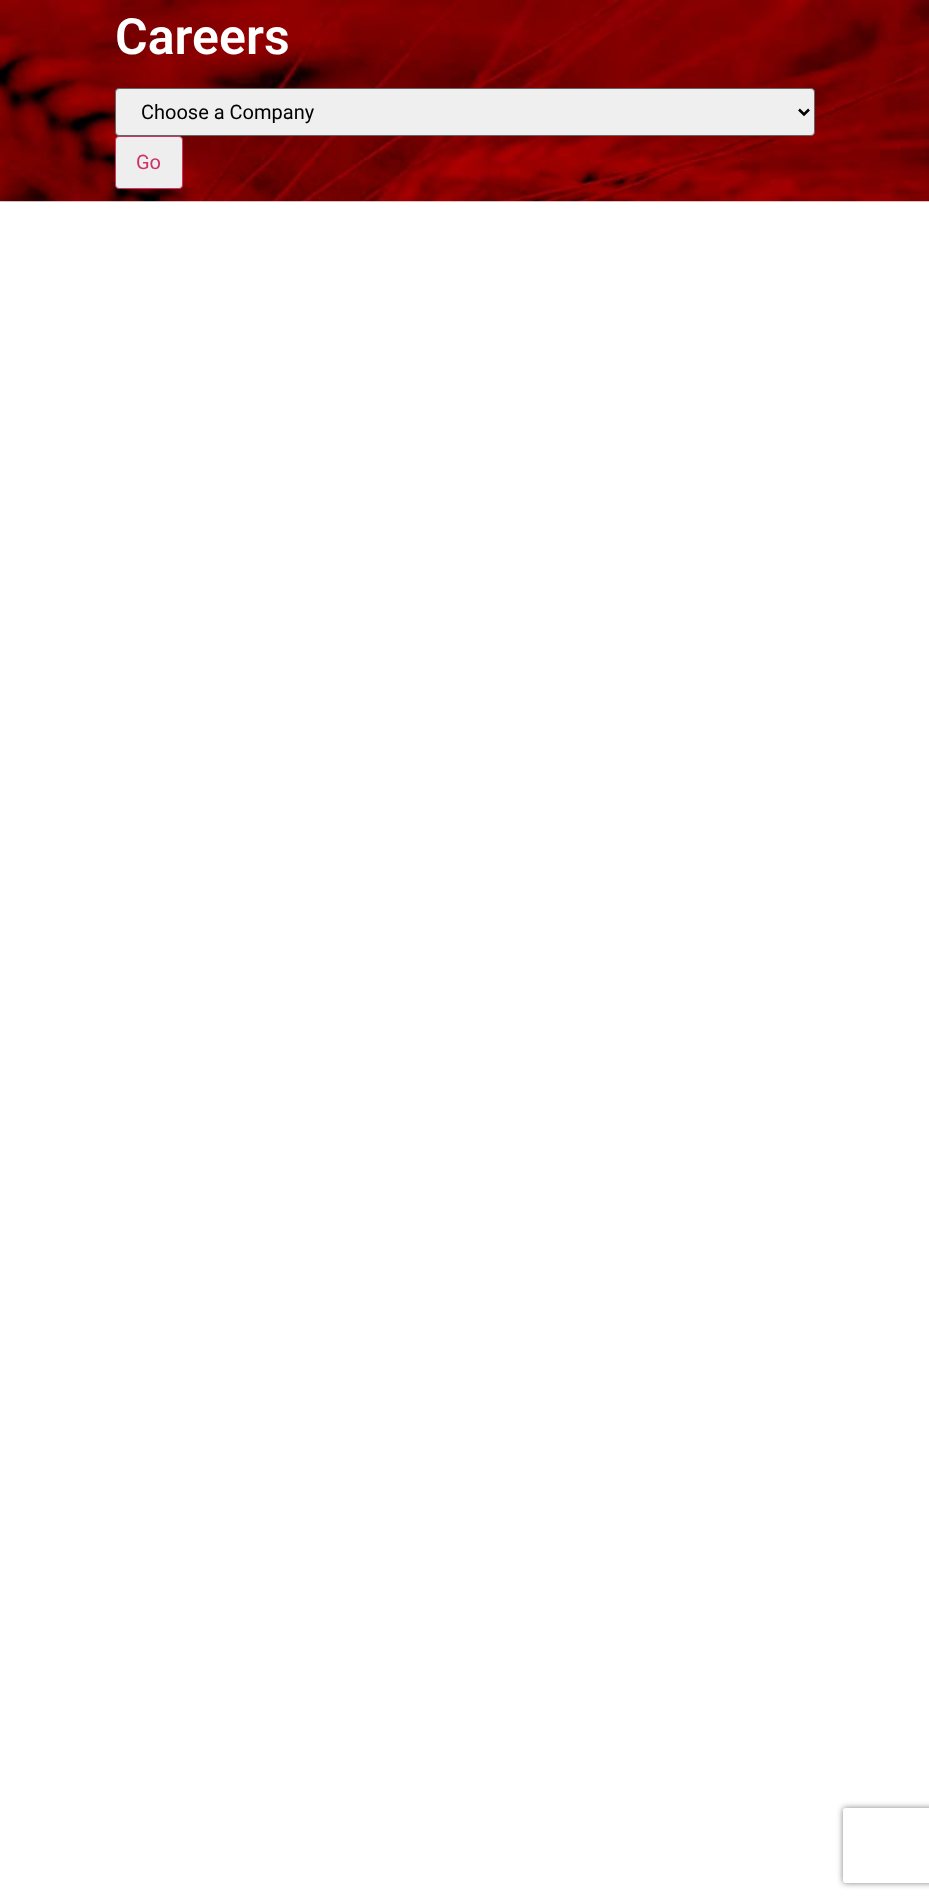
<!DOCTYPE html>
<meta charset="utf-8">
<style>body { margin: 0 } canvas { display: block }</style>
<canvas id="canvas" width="929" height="1900"></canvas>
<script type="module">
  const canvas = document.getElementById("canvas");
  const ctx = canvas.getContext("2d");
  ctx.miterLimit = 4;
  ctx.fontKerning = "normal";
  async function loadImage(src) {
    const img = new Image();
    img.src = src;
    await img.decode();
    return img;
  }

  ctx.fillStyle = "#ffffff";
  ctx.fillRect(0, 0, 929, 1900);
  ctx.drawImage(await loadImage("img1.png"), 0, 0, 929, 202);
  ctx.font = "600 50px Roboto";
  ctx.fillText("Careers", 115, 54);
  ctx.fillStyle = "#efefef";
  ctx.beginPath();
  ctx.roundRect(115.5, 88.5, 699, 47, 3.5);
  ctx.fill();
  ctx.strokeStyle = "#666666";
  ctx.stroke();
  ctx.beginPath();
  ctx.moveTo(799, 109.5);
  ctx.lineTo(804, 114.5);
  ctx.lineTo(809, 109.5);
  ctx.strokeStyle = "#000000";
  ctx.lineWidth = 2.5;
  ctx.stroke();
  ctx.font = "20px Roboto";
  ctx.fillStyle = "#000000";
  ctx.fillText("Choose a Company", 141, 119);
  ctx.fillStyle = "#eeeeee";
  ctx.beginPath();
  ctx.roundRect(115.5, 136.5, 67, 52, 3.5);
  ctx.fill();
  ctx.strokeStyle = "#cc3366";
  ctx.lineWidth = 1;
  ctx.stroke();
  ctx.fillStyle = "#cc3366";
  ctx.fillText("Go", 136, 169);
  ctx.save();
  ctx.beginPath();
  ctx.moveTo(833, 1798);
  ctx.lineTo(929, 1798);
  ctx.lineTo(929, 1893);
  ctx.lineTo(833, 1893);
  ctx.closePath();
  ctx.moveTo(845.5, 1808);
  ctx.lineTo(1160.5, 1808);
  ctx.bezierCurveTo(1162, 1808, 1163, 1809, 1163, 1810.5);
  ctx.lineTo(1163, 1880.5);
  ctx.bezierCurveTo(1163, 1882, 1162, 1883, 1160.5, 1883);
  ctx.lineTo(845.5, 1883);
  ctx.bezierCurveTo(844, 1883, 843, 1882, 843, 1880.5);
  ctx.lineTo(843, 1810.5);
  ctx.bezierCurveTo(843, 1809, 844, 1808, 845.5, 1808);
  ctx.closePath();
  ctx.clip("evenodd");
  ctx.fillStyle = "#808080";
  ctx.filter = "blur(3px)";
  ctx.beginPath();
  ctx.roundRect(843, 1808, 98, 75, 2.5);
  ctx.fill();
  ctx.filter = "none";
  ctx.restore();
</script>
